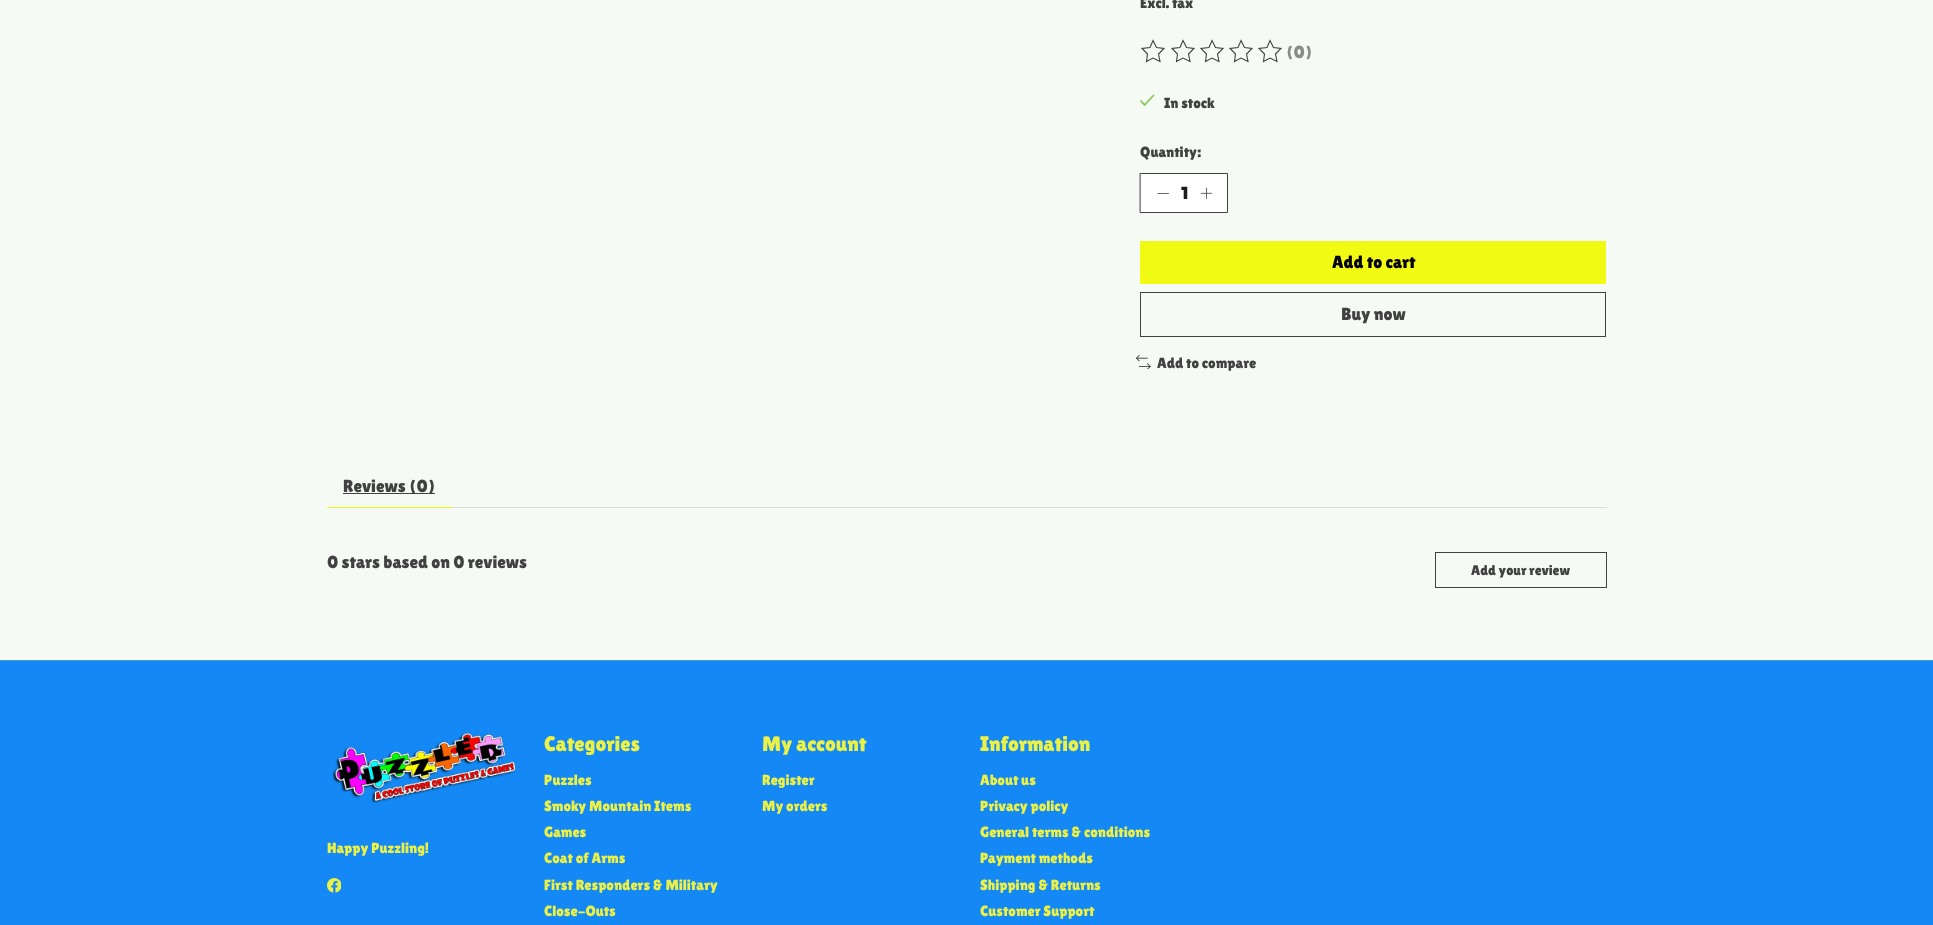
<!DOCTYPE html>
<meta charset="utf-8">
<style>body { margin: 0 } canvas { display: block }</style>
<canvas id="canvas" width="1933" height="925"></canvas>
<script type="module">
  const canvas = document.getElementById("canvas");
  const ctx = canvas.getContext("2d");
  ctx.miterLimit = 4;
  ctx.fontKerning = "normal";
  async function loadImage(src) {
    const img = new Image();
    img.src = src;
    await img.decode();
    return img;
  }

  ctx.fillStyle = "#f5faf4";
  ctx.fillRect(0, 0, 1933, 925);
  ctx.font = "14.75px Lilita One";
  ctx.fillStyle = "#414141";
  ctx.fillText("Excl. tax", 1140, 8);
  ctx.beginPath();
  ctx.moveTo(1153, 40.5);
  ctx.lineTo(1156.5, 47.5);
  ctx.lineTo(1164, 48.5);
  ctx.lineTo(1158.5, 54);
  ctx.lineTo(1160, 61.5);
  ctx.lineTo(1153, 58);
  ctx.lineTo(1146.5, 61.5);
  ctx.lineTo(1147.5, 54);
  ctx.lineTo(1142, 48.5);
  ctx.lineTo(1150, 47.5);
  ctx.closePath();
  ctx.moveTo(1183, 40.5);
  ctx.lineTo(1186.5, 47.5);
  ctx.lineTo(1194, 48.5);
  ctx.lineTo(1188.5, 54);
  ctx.lineTo(1190, 61.5);
  ctx.lineTo(1183, 58);
  ctx.lineTo(1176.5, 61.5);
  ctx.lineTo(1177.5, 54);
  ctx.lineTo(1172, 48.5);
  ctx.lineTo(1180, 47.5);
  ctx.closePath();
  ctx.strokeStyle = "#414141";
  ctx.lineWidth = 1.1;
  ctx.stroke();
  ctx.beginPath();
  ctx.moveTo(1212, 40.5);
  ctx.lineTo(1215.5, 47.5);
  ctx.lineTo(1223, 48.5);
  ctx.lineTo(1217.5, 54);
  ctx.lineTo(1219, 61.5);
  ctx.lineTo(1212, 58);
  ctx.lineTo(1205.5, 61.5);
  ctx.lineTo(1206.5, 54);
  ctx.lineTo(1201, 48.5);
  ctx.lineTo(1209, 47.5);
  ctx.closePath();
  ctx.moveTo(1241, 40.5);
  ctx.lineTo(1244.5, 47.5);
  ctx.lineTo(1252, 48.5);
  ctx.lineTo(1246.5, 54);
  ctx.lineTo(1248, 61.5);
  ctx.lineTo(1241, 58);
  ctx.lineTo(1234.5, 61.5);
  ctx.lineTo(1235.5, 54);
  ctx.lineTo(1230, 48.5);
  ctx.lineTo(1238, 47.5);
  ctx.closePath();
  ctx.stroke();
  ctx.beginPath();
  ctx.moveTo(1270, 40.5);
  ctx.lineTo(1273.5, 47.5);
  ctx.lineTo(1281, 48.5);
  ctx.lineTo(1275.5, 54);
  ctx.lineTo(1277, 61.5);
  ctx.lineTo(1270, 58);
  ctx.lineTo(1263.5, 61.5);
  ctx.lineTo(1264.5, 54);
  ctx.lineTo(1259, 48.5);
  ctx.lineTo(1267, 47.5);
  ctx.closePath();
  ctx.stroke();
  ctx.font = "17.6px Lilita One";
  ctx.fillStyle = "#898b89";
  ctx.fillText("(0)", 1286, 58);
  ctx.beginPath();
  ctx.moveTo(1141, 101);
  ctx.lineTo(1144.5, 105);
  ctx.lineTo(1153.5, 95.5);
  ctx.strokeStyle = "#88c559";
  ctx.lineWidth = 1.8;
  ctx.lineCap = "round";
  ctx.lineJoin = "round";
  ctx.stroke();
  ctx.font = "14.75px Lilita One";
  ctx.fillStyle = "#414141";
  ctx.fillText("In stock", 1164, 108);
  ctx.fillText("Quantity:", 1140, 157);
  ctx.fillStyle = "#ffffff";
  ctx.beginPath();
  ctx.rect(1140.5, 173.5, 87, 39);
  ctx.fill();
  ctx.strokeStyle = "#414141";
  ctx.lineWidth = 1;
  ctx.lineJoin = "miter";
  ctx.stroke();
  ctx.beginPath();
  ctx.moveTo(1158, 193.5);
  ctx.lineTo(1168.5, 193.5);
  ctx.lineWidth = 0.8;
  ctx.lineJoin = "round";
  ctx.stroke();
  ctx.font = "17.6px Lilita One";
  ctx.fillStyle = "#1c1c21";
  ctx.fillText("1", 1181, 199);
  ctx.drawImage(await loadImage("img1.png"), 1200, 187, 12, 12);
  ctx.fillStyle = "#f1fa13";
  ctx.fillRect(1140, 241, 466, 43);
  ctx.fillStyle = "#020005";
  ctx.fillText("Add to cart", 1332, 268);
  ctx.lineWidth = 1;
  ctx.lineJoin = "miter";
  ctx.strokeRect(1140.5, 292.5, 465, 44);
  ctx.fillStyle = "#414141";
  ctx.fillText("Buy now", 1341, 320);
  ctx.drawImage(await loadImage("img2.png"), 1136, 355, 15, 14);
  ctx.font = "14.75px Lilita One";
  ctx.fillText("Add to compare", 1157, 368);
  ctx.fillStyle = "#f1fa13";
  ctx.fillRect(327, 507, 125, 1);
  ctx.fillStyle = "#414141";
  ctx.fillRect(343, 493, 92, 1);
  ctx.font = "17.6px Lilita One";
  ctx.fillText("Reviews (0)", 343, 492);
  ctx.fillStyle = "#daded9";
  ctx.fillRect(452, 507, 1155, 1);
  ctx.fillStyle = "#414141";
  ctx.fillText("0 stars based on 0 reviews", 327, 568);
  ctx.strokeRect(1435.5, 552.5, 171, 35);
  ctx.font = "14px Lilita One";
  ctx.fillText("Add your review", 1471, 575);
  ctx.fillStyle = "#1488f4";
  ctx.fillRect(0, 661, 1933, 264);
  ctx.fillStyle = "#3f9dd1";
  ctx.fillRect(0, 660, 1933, 1);
  ctx.drawImage(await loadImage("img3.png"), 332, 732, 184, 71);
  ctx.font = "14.75px Lilita One";
  ctx.fillStyle = "#ebf146";
  ctx.fillText("Happy Puzzling!", 327, 853);
  ctx.drawImage(await loadImage("img4.png"), 327, 878, 14, 15);
  ctx.font = "21px Lilita One";
  ctx.fillText("Categories", 544, 751);
  ctx.font = "14.75px Lilita One";
  ctx.fillText("Puzzles", 544, 785);
  ctx.fillText("Smoky Mountain Items", 544, 811);
  ctx.fillText("Games", 544, 837);
  ctx.fillText("Coat of Arms", 544, 863);
  ctx.fillText("First Responders & Military", 544, 890);
  ctx.fillText("Close-Outs", 544, 916);
  ctx.font = "21px Lilita One";
  ctx.fillText("My account", 762, 751);
  ctx.font = "14.75px Lilita One";
  ctx.fillText("Register", 762, 785);
  ctx.fillText("My orders", 762, 811);
  ctx.font = "21px Lilita One";
  ctx.fillText("Information", 980, 751);
  ctx.font = "14.75px Lilita One";
  ctx.fillText("About us", 980, 785);
  ctx.fillText("Privacy policy", 980, 811);
  ctx.fillText("General terms & conditions", 980, 837);
  ctx.fillText("Payment methods", 980, 863);
  ctx.fillText("Shipping & Returns", 980, 890);
  ctx.fillText("Customer Support", 980, 916);
</script>
